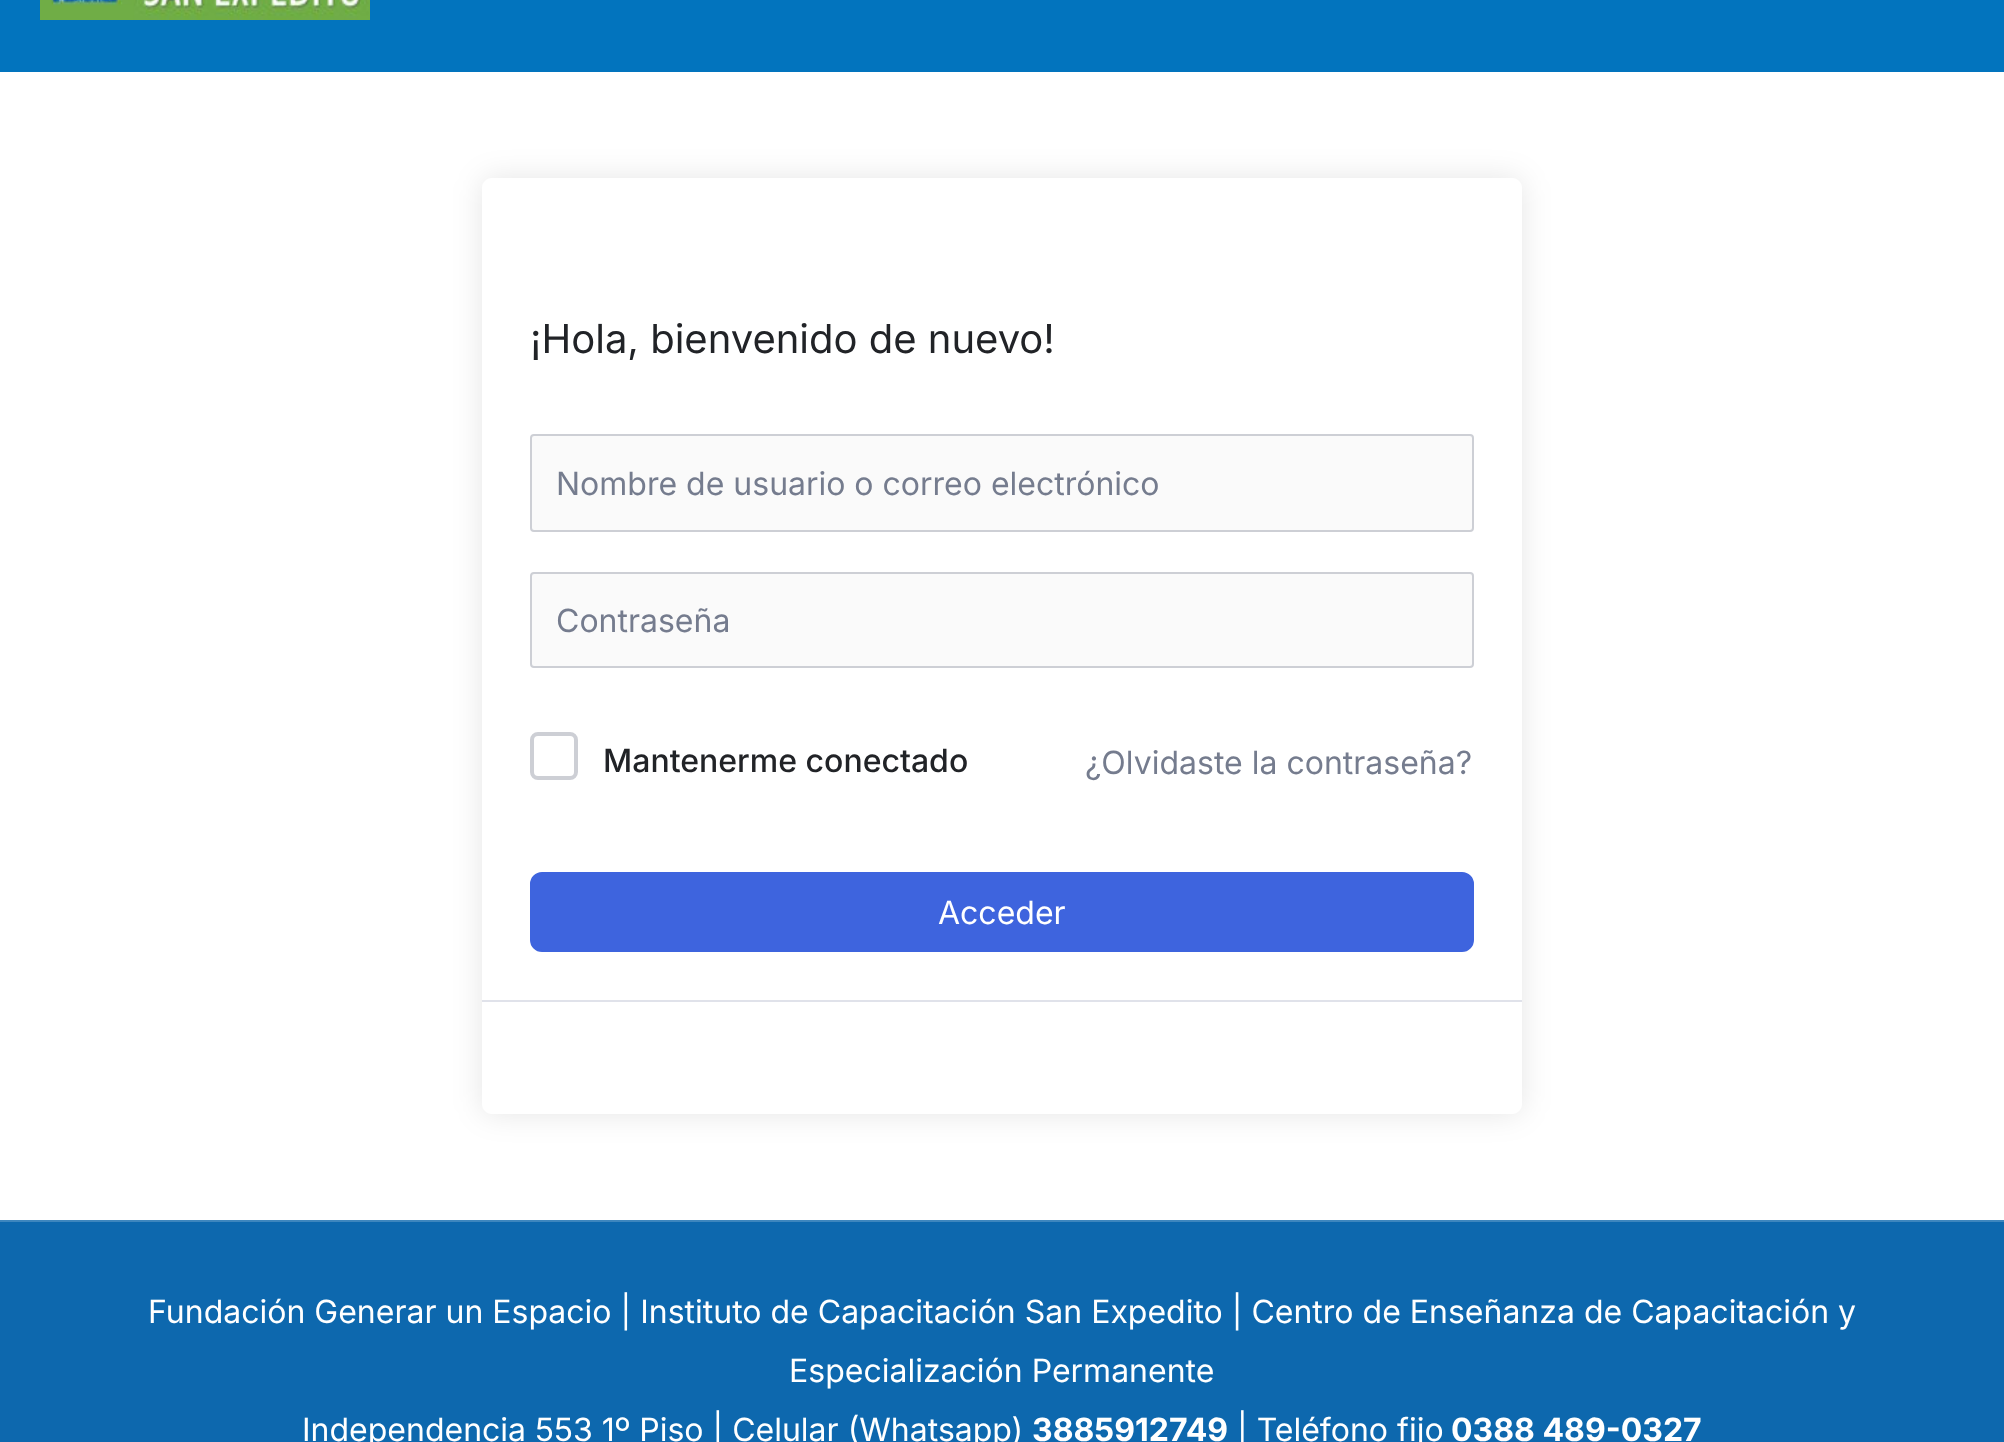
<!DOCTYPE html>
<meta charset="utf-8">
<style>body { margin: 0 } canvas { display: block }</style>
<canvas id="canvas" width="2004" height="1442"></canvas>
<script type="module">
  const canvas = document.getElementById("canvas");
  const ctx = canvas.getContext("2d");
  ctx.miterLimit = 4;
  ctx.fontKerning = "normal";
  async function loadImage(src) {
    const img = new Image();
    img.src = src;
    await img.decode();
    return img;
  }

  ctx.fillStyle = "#ffffff";
  ctx.fillRect(0, 0, 2004, 1442);
  ctx.fillStyle = "#0274be";
  ctx.fillRect(0, 0, 2004, 72);
  ctx.drawImage(await loadImage("img1.png"), 40, 0, 330, 20);
  ctx.save();
  ctx.beginPath();
  ctx.moveTo(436, 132);
  ctx.lineTo(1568, 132);
  ctx.lineTo(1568, 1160);
  ctx.lineTo(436, 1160);
  ctx.closePath();
  ctx.moveTo(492, 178);
  ctx.lineTo(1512, 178);
  ctx.bezierCurveTo(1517.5, 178, 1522, 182.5, 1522, 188);
  ctx.lineTo(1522, 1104);
  ctx.bezierCurveTo(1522, 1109.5, 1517.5, 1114, 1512, 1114);
  ctx.lineTo(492, 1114);
  ctx.bezierCurveTo(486.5, 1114, 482, 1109.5, 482, 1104);
  ctx.lineTo(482, 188);
  ctx.bezierCurveTo(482, 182.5, 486.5, 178, 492, 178);
  ctx.closePath();
  ctx.clip("evenodd");
  ctx.fillStyle = "rgba(0, 0, 0, 0.1)";
  ctx.filter = "blur(15px)";
  ctx.beginPath();
  ctx.roundRect(482, 178, 1040, 936, 10);
  ctx.fill();
  ctx.filter = "none";
  ctx.restore();
  ctx.font = "40px Inter";
  ctx.fillStyle = "#212327";
  ctx.fillText("¡Hola, bienvenido de nuevo!", 530, 353);
  ctx.fillStyle = "#fafafa";
  ctx.beginPath();
  ctx.roundRect(531, 435, 942, 96, 3);
  ctx.fill();
  ctx.strokeStyle = "#cdcfd5";
  ctx.lineWidth = 2;
  ctx.stroke();
  ctx.font = "32px Inter";
  ctx.fillStyle = "#757c8e";
  ctx.fillText("Nombre de usuario o correo electrónico", 556, 495);
  ctx.fillStyle = "#fafafa";
  ctx.beginPath();
  ctx.roundRect(531, 573, 942, 94, 3);
  ctx.fill();
  ctx.stroke();
  ctx.fillStyle = "#757c8e";
  ctx.fillText("Contraseña", 556, 632);
  ctx.beginPath();
  ctx.roundRect(532, 734, 44, 44, 6);
  ctx.lineWidth = 4;
  ctx.stroke();
  ctx.font = "500 32px Inter";
  ctx.fillStyle = "#212327";
  ctx.fillText("Mantenerme conectado", 603, 772);
  ctx.font = "32px Inter";
  ctx.fillStyle = "#757c8e";
  ctx.fillText("¿Olvidaste la contraseña?", 1085, 774);
  ctx.fillStyle = "#3e64de";
  ctx.beginPath();
  ctx.roundRect(531, 873, 942, 78, 11);
  ctx.fill();
  ctx.strokeStyle = "#3e64de";
  ctx.lineWidth = 2;
  ctx.stroke();
  ctx.fillStyle = "#ffffff";
  ctx.fillText("Acceder", 938, 924);
  ctx.fillStyle = "#e0e2ea";
  ctx.fillRect(482, 1000, 1040, 2);
  ctx.fillStyle = "#0d68ae";
  ctx.fillRect(0, 1222, 2004, 220);
  ctx.fillStyle = "#3d86be";
  ctx.fillRect(0, 1220, 2004, 2);
  ctx.fillStyle = "#ffffff";
  ctx.fillText("Fundación Generar un Espacio | Instituto de Capacitación San Expedito | Centro de Enseñanza de Capacitación y", 148, 1323);
  ctx.fillText("Especialización Permanente", 789, 1382);
  ctx.fillText("Independencia 553 1º Piso | Celular (Whatsapp)", 302, 1441);
  ctx.font = "bold 32px Inter";
  ctx.fillText("3885912749", 1032, 1441);
  ctx.font = "32px Inter";
  ctx.fillText("| Teléfono fijo", 1237, 1441);
  ctx.font = "bold 32px Inter";
  ctx.fillText("0388 489-0327", 1451, 1441);
</script>
